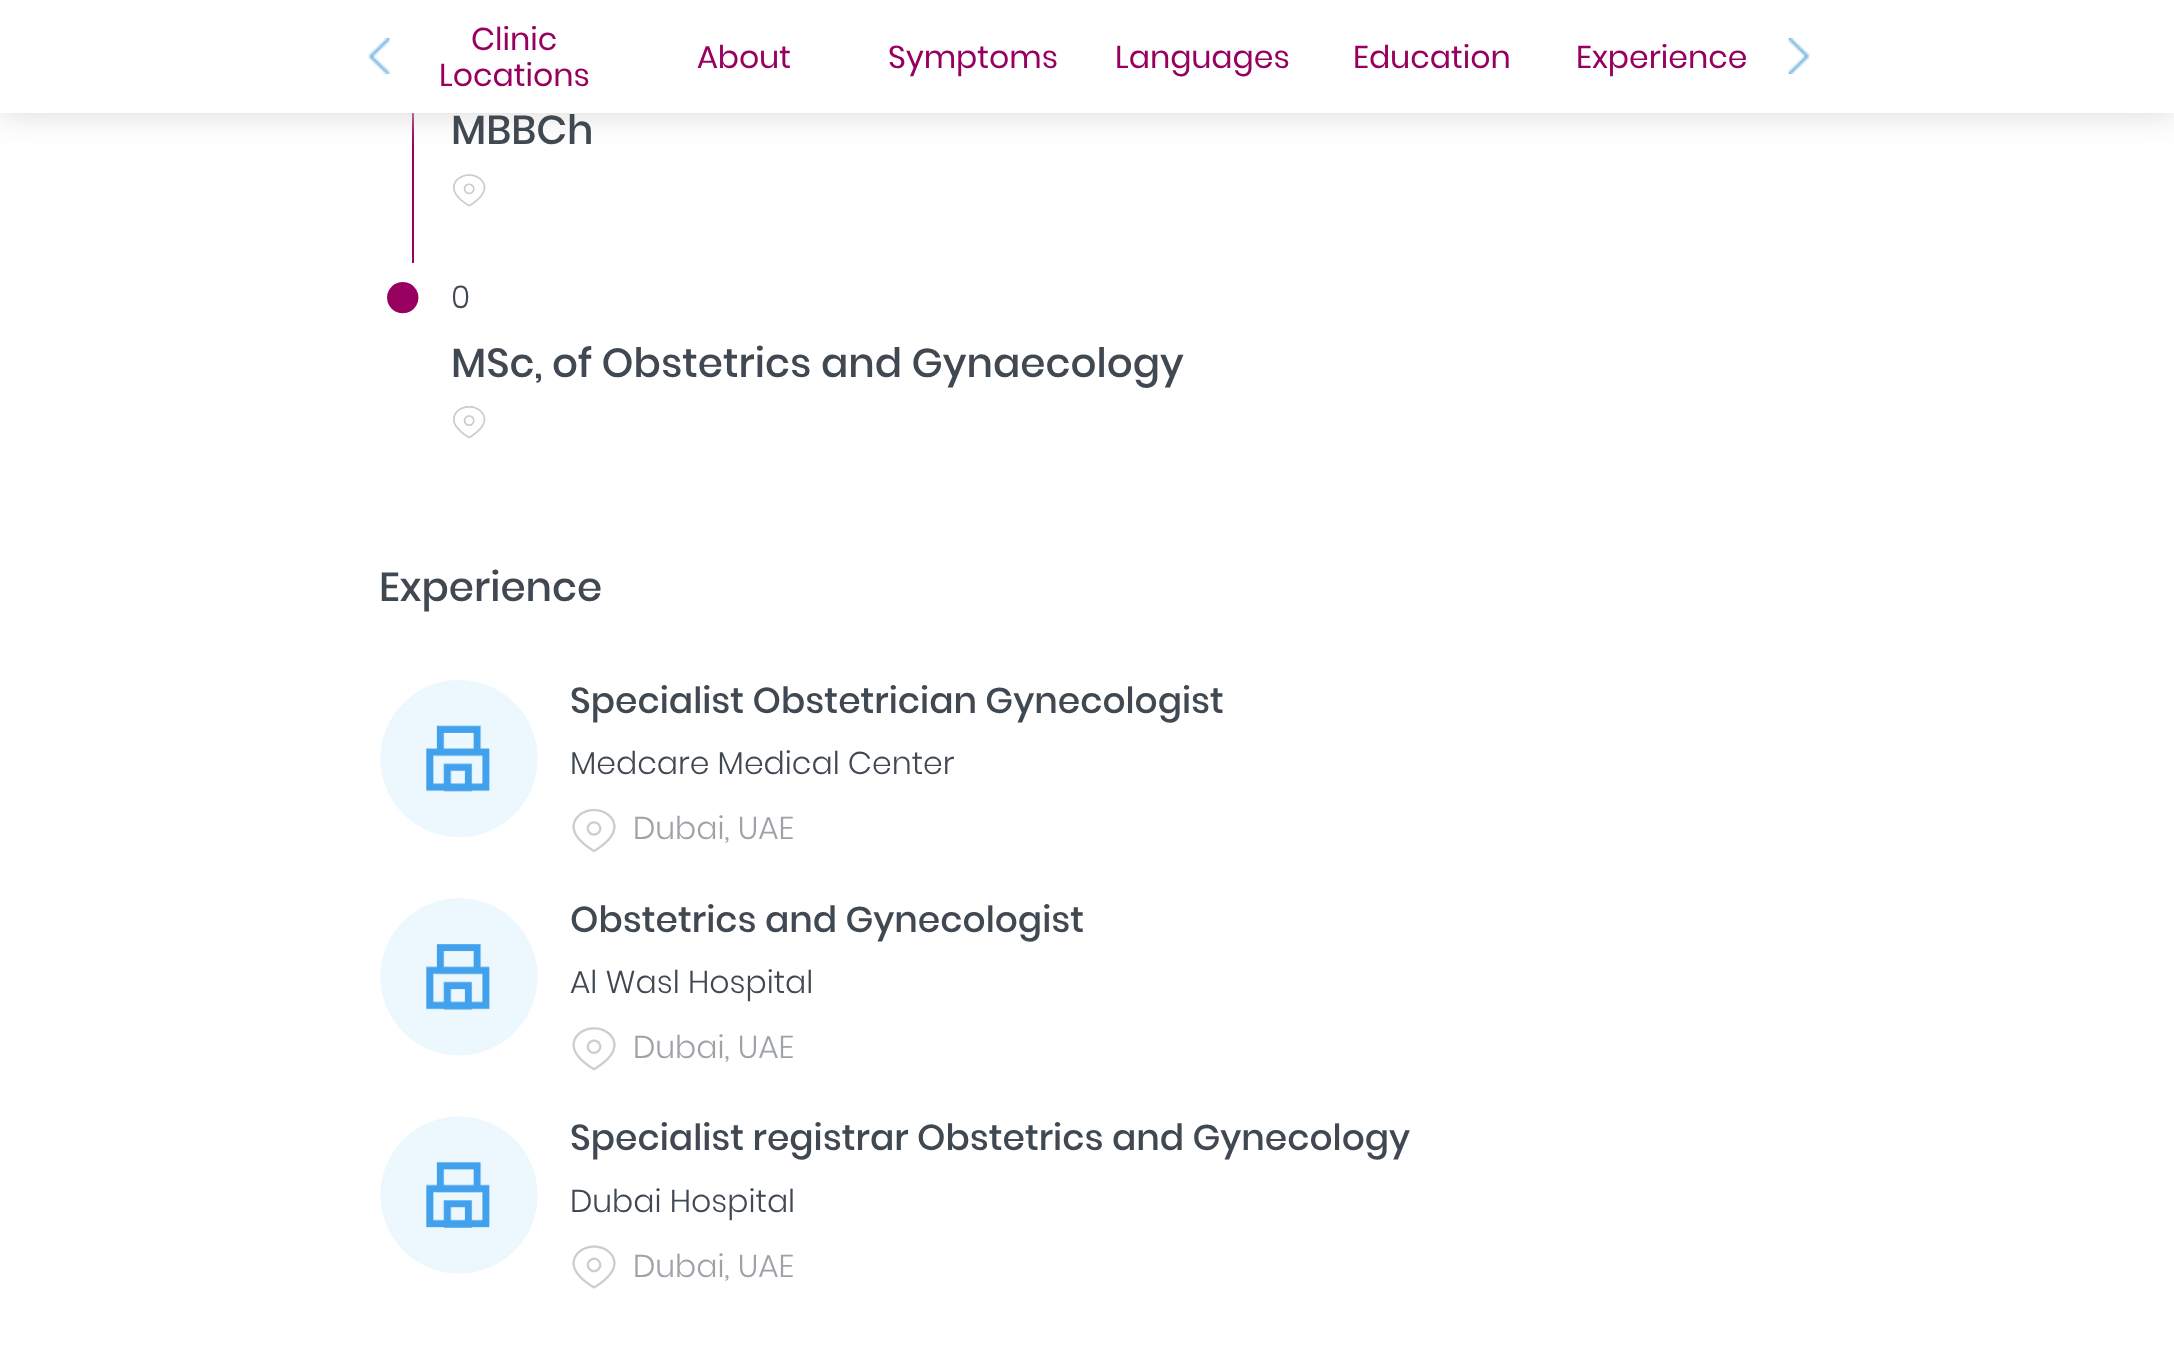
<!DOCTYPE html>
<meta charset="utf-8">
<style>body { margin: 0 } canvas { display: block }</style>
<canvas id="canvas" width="2174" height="1352"></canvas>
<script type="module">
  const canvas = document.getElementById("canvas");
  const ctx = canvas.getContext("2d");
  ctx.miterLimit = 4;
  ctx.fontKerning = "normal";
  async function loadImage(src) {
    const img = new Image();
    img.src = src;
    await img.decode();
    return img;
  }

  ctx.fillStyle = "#ffffff";
  ctx.fillRect(0, 0, 2174, 1352);
  ctx.fillStyle = "#97005e";
  ctx.fillRect(412, 113, 2, 150);
  ctx.fillStyle = "#d8d8d8";
  ctx.filter = "blur(17px)";
  ctx.beginPath();
  ctx.rect(0, 0, 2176, 113);
  ctx.fill();
  ctx.filter = "none";
  ctx.fillStyle = "#ffffff";
  ctx.fillRect(0, 0, 2174, 113);
  ctx.drawImage(await loadImage("img1.png"), 368, 38, 22, 36);
  ctx.font = "31.5px Poppins";
  ctx.fillStyle = "#97005e";
  ctx.fillText("Clinic", 471, 50);
  ctx.fillText("Locations", 439, 86);
  ctx.fillText("About", 697, 68);
  ctx.fillText("Symptoms", 888, 68);
  ctx.fillText("Languages", 1115, 68);
  ctx.fillText("Education", 1353, 68);
  ctx.fillText("Experience", 1576, 68);
  ctx.drawImage(await loadImage("img2.png"), 1788, 38, 22, 36);
  ctx.font = "500 40.5px Poppins";
  ctx.fillStyle = "#404852";
  ctx.fillText("MBBCh", 451, 144);
  ctx.drawImage(await loadImage("img3.png"), 453, 174, 33, 33);
  ctx.font = "600 112px Poppins";
  ctx.fillStyle = "#97005e";
  ctx.fillText("•", 379, 335);
  ctx.font = "300 31.5px Poppins";
  ctx.fillStyle = "#404852";
  ctx.fillText("0", 451, 308);
  ctx.font = "500 40.5px Poppins";
  ctx.fillText("MSc, of Obstetrics and Gynaecology", 451, 377);
  ctx.drawImage(await loadImage("img4.png"), 453, 406, 33, 33);
  ctx.fillText("Experience", 379, 601);
  ctx.drawImage(await loadImage("img5.png"), 380, 680, 158, 157);
  ctx.font = "500 36px Poppins";
  ctx.fillText("Specialist Obstetrician Gynecologist", 570, 713);
  ctx.font = "300 31.5px Poppins";
  ctx.fillText("Medcare Medical Center", 570, 774);
  ctx.drawImage(await loadImage("img6.png"), 572, 808, 44, 45);
  ctx.fillStyle = "#9fa3a8";
  ctx.fillText("Dubai, UAE", 633, 839);
  ctx.drawImage(await loadImage("img7.png"), 380, 898, 158, 158);
  ctx.font = "500 36px Poppins";
  ctx.fillStyle = "#404852";
  ctx.fillText("Obstetrics and Gynecologist", 570, 932);
  ctx.font = "300 31.5px Poppins";
  ctx.fillText("Al Wasl Hospital", 570, 993);
  ctx.drawImage(await loadImage("img8.png"), 572, 1027, 44, 44);
  ctx.fillStyle = "#9fa3a8";
  ctx.fillText("Dubai, UAE", 633, 1058);
  ctx.drawImage(await loadImage("img9.png"), 380, 1116, 158, 158);
  ctx.font = "500 36px Poppins";
  ctx.fillStyle = "#404852";
  ctx.fillText("Specialist registrar Obstetrics and Gynecology", 570, 1150);
  ctx.font = "300 31.5px Poppins";
  ctx.fillText("Dubai Hospital", 570, 1212);
  ctx.drawImage(await loadImage("img10.png"), 572, 1245, 44, 44);
  ctx.fillStyle = "#9fa3a8";
  ctx.fillText("Dubai, UAE", 633, 1277);
</script>
